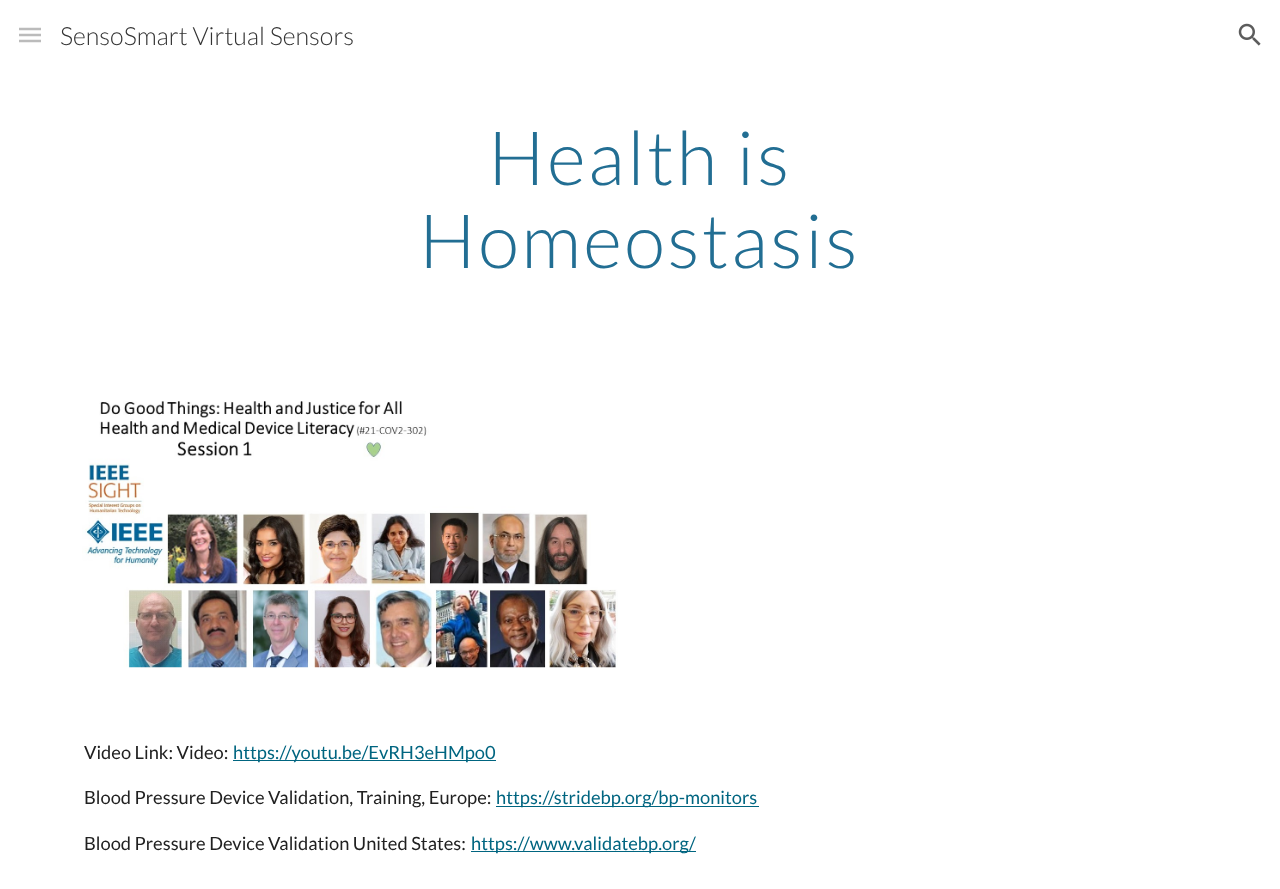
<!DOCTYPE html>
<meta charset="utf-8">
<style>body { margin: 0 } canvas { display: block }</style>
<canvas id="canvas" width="1280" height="889"></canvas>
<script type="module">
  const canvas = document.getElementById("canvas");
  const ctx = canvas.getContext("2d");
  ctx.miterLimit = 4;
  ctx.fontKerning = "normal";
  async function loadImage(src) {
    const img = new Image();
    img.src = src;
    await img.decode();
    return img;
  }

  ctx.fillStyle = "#ffffff";
  ctx.fillRect(0, 0, 1280, 889);
  ctx.beginPath();
  ctx.moveTo(19, 29);
  ctx.lineTo(41, 29);
  ctx.moveTo(19, 35);
  ctx.lineTo(41, 35);
  ctx.moveTo(19, 41);
  ctx.lineTo(41, 41);
  ctx.strokeStyle = "#bbbbbb";
  ctx.lineWidth = 2.5;
  ctx.stroke();
  ctx.font = "300 25px Lato";
  ctx.fillStyle = "#333333";
  ctx.fillText("SensoSmart Virtual Sensors", 60, 45);
  ctx.drawImage(await loadImage("img1.png"), 1238, 23, 23, 23);
  ctx.letterSpacing = "2.5px";
  ctx.font = "300 75px Lato";
  ctx.fillStyle = "#226e93";
  ctx.fillText("Health is", 488, 185);
  ctx.fillText("Homeostasis", 419, 268);
  ctx.drawImage(await loadImage("img2.png"), 82, 401, 536, 267);
  ctx.letterSpacing = "0px";
  ctx.font = "18.3px Lato";
  ctx.fillStyle = "#212121";
  ctx.fillText("Video Link: Video:", 84, 759);
  ctx.fillStyle = "#006580";
  ctx.fillRect(233, 760, 263, 1);
  ctx.fillText("https://youtu.be/EvRH3eHMpo0", 233, 759);
  ctx.fillStyle = "#212121";
  ctx.fillText("Blood Pressure Device Validation, Training, Europe:", 84, 804);
  ctx.fillStyle = "#006580";
  ctx.fillRect(496, 806, 263, 1);
  ctx.fillText("https://stridebp.org/bp-monitors", 496, 804);
  ctx.fillStyle = "#212121";
  ctx.fillText("Blood Pressure Device Validation United States:", 84, 850);
  ctx.fillStyle = "#006580";
  ctx.fillRect(471, 851, 225, 1);
  ctx.fillText("https://www.validatebp.org/", 471, 850);
</script>
